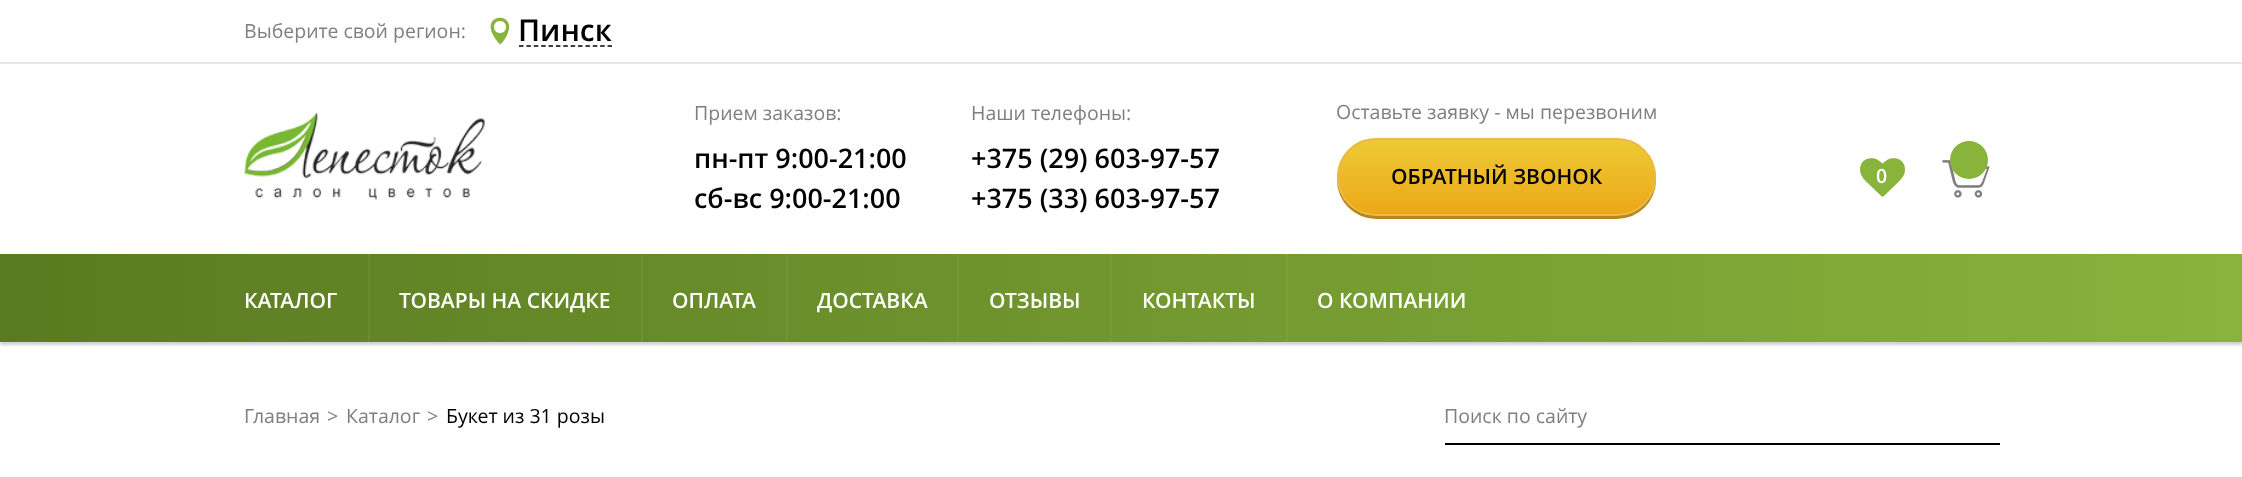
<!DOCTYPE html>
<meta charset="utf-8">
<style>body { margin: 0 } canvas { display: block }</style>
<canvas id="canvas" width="2242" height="477"></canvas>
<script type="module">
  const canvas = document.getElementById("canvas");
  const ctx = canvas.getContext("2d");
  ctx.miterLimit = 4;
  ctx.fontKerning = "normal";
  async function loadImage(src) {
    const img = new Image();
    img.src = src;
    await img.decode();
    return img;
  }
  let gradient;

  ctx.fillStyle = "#ffffff";
  ctx.fillRect(0, 0, 2242, 477);
  ctx.fillStyle = "#e6e6e6";
  ctx.fillRect(0, 62, 2242, 2);
  ctx.font = "19.5px Open Sans";
  ctx.fillStyle = "#7f7f7f";
  ctx.fillText("Выберите свой регион:", 244, 38);
  ctx.fillStyle = "#89b43c";
  ctx.beginPath();
  ctx.moveTo(499.5, 44);
  ctx.lineTo(500, 44.5);
  ctx.bezierCurveTo(502.5, 43.5, 506.5, 36.5, 507.5, 34);
  ctx.bezierCurveTo(518.5, 9.5, 472, 12.5, 499.5, 44);
  ctx.closePath();
  ctx.moveTo(500, 21);
  ctx.bezierCurveTo(508, 21, 508, 33, 500, 33);
  ctx.bezierCurveTo(492, 33, 492, 21, 500, 21);
  ctx.closePath();
  ctx.fill();
  ctx.beginPath();
  ctx.moveTo(519, 46);
  ctx.lineTo(612, 46);
  ctx.strokeStyle = "#000000";
  ctx.lineWidth = 1.5;
  ctx.setLineDash([4.5, 2.88]);
  ctx.stroke();
  ctx.font = "600 30px Open Sans";
  ctx.fillStyle = "#000000";
  ctx.fillText("Пинск", 518, 41);
  ctx.drawImage(await loadImage("img1.png"), 244, 112, 241, 88);
  ctx.font = "19.5px Open Sans";
  ctx.fillStyle = "#7f7f7f";
  ctx.fillText("Прием заказов:", 694, 120);
  ctx.font = "600 27px Open Sans";
  ctx.fillStyle = "#000000";
  ctx.fillText("пн-пт 9:00-21:00", 694, 168);
  ctx.fillText("сб-вс 9:00-21:00", 694, 208);
  ctx.font = "19.5px Open Sans";
  ctx.fillStyle = "#7f7f7f";
  ctx.fillText("Наши телефоны:", 971, 120);
  ctx.font = "600 27px Open Sans";
  ctx.fillStyle = "#000000";
  ctx.fillText("+375 (29) 603-97-57", 971, 168);
  ctx.fillText("+375 (33) 603-97-57", 971, 208);
  ctx.font = "19.5px Open Sans";
  ctx.fillStyle = "#7f7f7f";
  ctx.fillText("Оставьте заявку - мы перезвоним", 1336, 119);
  ctx.fillStyle = "#b7871d";
  ctx.beginPath();
  ctx.roundRect(1337, 141, 319, 78, 39);
  ctx.fill();
  ctx.save();
  ctx.beginPath();
  ctx.roundRect(1337, 138, 319, 78, 39);
  ctx.clip();
  gradient = ctx.createLinearGradient(1496, 215, 1496, 140);
  gradient.addColorStop(0, "#eca717");
  gradient.addColorStop(1, "#efca36");
  ctx.fillStyle = gradient;
  ctx.fillRect(1337, 140, 319, 75);
  ctx.restore();
  ctx.beginPath();
  ctx.roundRect(1338, 139, 317, 76, 38);
  ctx.strokeStyle = "#e9ba44";
  ctx.lineWidth = 2;
  ctx.setLineDash([]);
  ctx.stroke();
  ctx.font = "600 21px Open Sans";
  ctx.fillStyle = "#000000";
  ctx.fillText("ОБРАТНЫЙ ЗВОНОК", 1391, 184);
  ctx.drawImage(await loadImage("img2.png"), 1860, 158, 45, 39);
  ctx.font = "600 19.5px Open Sans";
  ctx.fillStyle = "#ffffff";
  ctx.fillText("0", 1876, 183);
  ctx.drawImage(await loadImage("img3.png"), 1942, 160, 48, 38);
  ctx.fillStyle = "#89b43c";
  ctx.beginPath();
  ctx.arc(1969, 160, 19, 0, Math.PI * 2);
  ctx.fill();
  ctx.fillStyle = "rgba(30, 15, 0, 0.2)";
  ctx.filter = "blur(1.5px)";
  ctx.beginPath();
  ctx.rect(0, 257, 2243, 88);
  ctx.fill();
  ctx.filter = "none";
  gradient = ctx.createLinearGradient(0, 298, 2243, 298);
  gradient.addColorStop(0, "#5a7a21");
  gradient.addColorStop(1, "#88b33c");
  ctx.fillStyle = gradient;
  ctx.fillRect(0, 254, 2242, 88);
  ctx.fillStyle = "#6a8931";
  ctx.fillRect(368, 254, 2, 88);
  ctx.font = "600 21px Open Sans";
  ctx.fillStyle = "#ffffff";
  ctx.fillText("КАТАЛОГ", 244, 308);
  ctx.fillStyle = "#6f9034";
  ctx.fillRect(641, 254, 2, 88);
  ctx.fillStyle = "#ffffff";
  ctx.fillText("ТОВАРЫ НА СКИДКЕ", 399, 308);
  ctx.fillStyle = "#729335";
  ctx.fillRect(786, 254, 2, 88);
  ctx.fillStyle = "#ffffff";
  ctx.fillText("ОПЛАТА", 672, 308);
  ctx.fillStyle = "#759738";
  ctx.fillRect(957, 254, 2, 88);
  ctx.fillStyle = "#ffffff";
  ctx.fillText("ДОСТАВКА", 817, 308);
  ctx.fillStyle = "#789b39";
  ctx.fillRect(1110, 254, 2, 88);
  ctx.fillStyle = "#ffffff";
  ctx.fillText("ОТЗЫВЫ", 989, 308);
  ctx.fillStyle = "#7ba03b";
  ctx.fillRect(1286, 254, 2, 88);
  ctx.fillStyle = "#ffffff";
  ctx.fillText("КОНТАКТЫ", 1142, 308);
  ctx.fillText("О КОМПАНИИ", 1317, 308);
  ctx.font = "19.5px Open Sans";
  ctx.fillStyle = "#7f7f7f";
  ctx.fillText("Главная", 244, 423);
  ctx.fillText(">", 327, 423);
  ctx.fillText("Каталог", 346, 423);
  ctx.fillText(">", 427, 423);
  ctx.fillStyle = "#000000";
  ctx.fillText("Букет из 31 розы", 446, 423);
  ctx.fillRect(1445, 443, 555, 2);
  ctx.fillStyle = "#7f7f7f";
  ctx.fillText("Поиск по сайту", 1444, 423);
</script>
